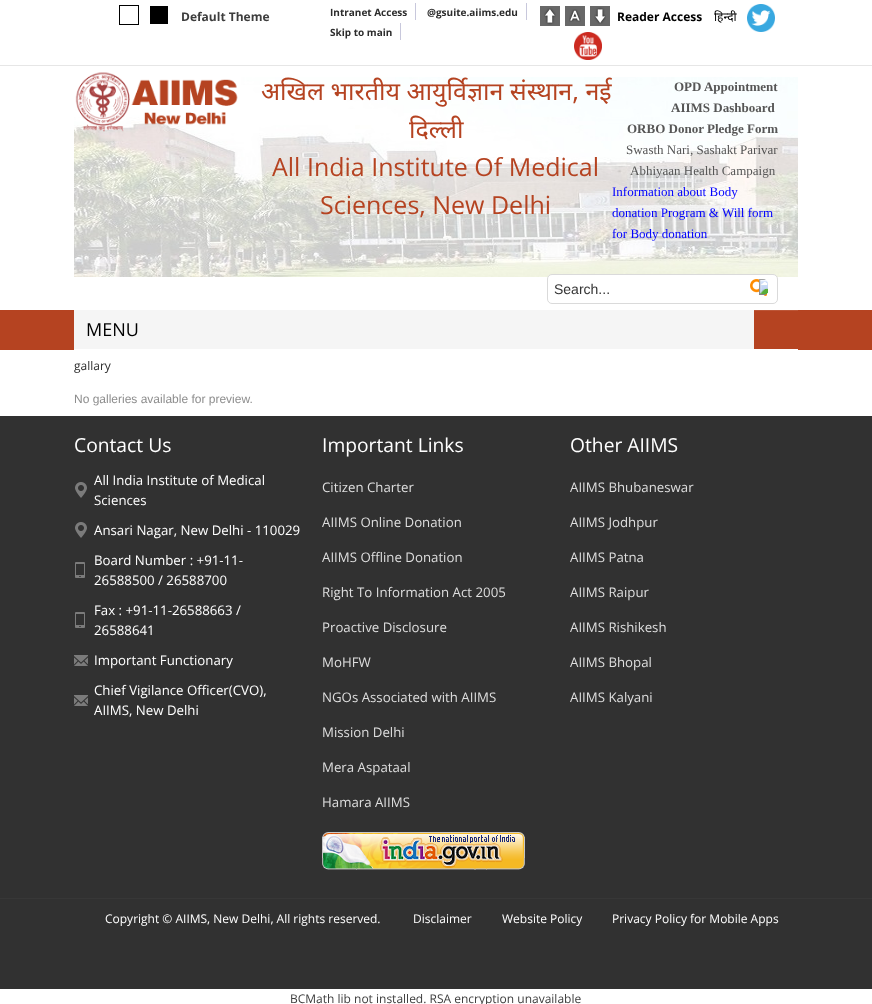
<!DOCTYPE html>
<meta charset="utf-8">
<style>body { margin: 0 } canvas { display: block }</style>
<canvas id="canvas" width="872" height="1004"></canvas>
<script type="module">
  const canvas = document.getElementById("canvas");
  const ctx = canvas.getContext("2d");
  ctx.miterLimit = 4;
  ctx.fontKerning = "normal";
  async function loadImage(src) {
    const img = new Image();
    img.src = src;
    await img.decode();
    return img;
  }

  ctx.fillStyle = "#ffffff";
  ctx.fillRect(0, 0, 872, 1004);
  ctx.fillStyle = "#e6e6e6";
  ctx.fillRect(0, 65, 872, 1);
  ctx.strokeStyle = "#000000";
  ctx.strokeRect(119.5, 5.5, 19, 19);
  ctx.fillStyle = "#000000";
  ctx.fillRect(150, 6, 18, 18);
  ctx.font = "bold 12px Open Sans";
  ctx.fillStyle = "#3d3d3d";
  ctx.fillText("Default Theme", 181, 21);
  ctx.font = "bold 10px Open Sans";
  ctx.fillStyle = "#2c2c2c";
  ctx.fillText("Intranet Access", 330, 16);
  ctx.fillStyle = "#c8c8dc";
  ctx.fillRect(415, 3, 1, 17);
  ctx.fillStyle = "#2c2c2c";
  ctx.fillText("@gsuite.aiims.edu", 427, 16);
  ctx.fillStyle = "#c8c8dc";
  ctx.fillRect(526, 3, 1, 17);
  ctx.fillStyle = "#2c2c2c";
  ctx.fillText("Skip to main", 330, 36);
  ctx.fillStyle = "#c8c8dc";
  ctx.fillRect(400, 23, 1, 17);
  ctx.fillStyle = "#686868";
  ctx.fillRect(540, 6, 20, 20);
  ctx.drawImage(await loadImage("img1.png"), 544, 8, 12, 17);
  ctx.fillRect(565, 6, 20, 20);
  ctx.drawImage(await loadImage("img2.png"), 569, 9, 12, 13);
  ctx.fillRect(590, 6, 20, 20);
  ctx.drawImage(await loadImage("img3.png"), 594, 7, 12, 17);
  ctx.font = "bold 12px Open Sans";
  ctx.fillStyle = "#000000";
  ctx.fillText("Reader Access", 617, 21);
  ctx.font = "12px Noto Sans";
  ctx.fillText("हिन्दी", 714, 21);
  ctx.drawImage(await loadImage("img4.png"), 747, 4, 28, 28);
  ctx.drawImage(await loadImage("img5.png"), 574, 32, 28, 28);
  ctx.drawImage(await loadImage("img6.png"), 74, 77, 724, 200);
  ctx.drawImage(await loadImage("img7.png"), 75, 72, 163, 60);
  ctx.font = "25px Noto Sans";
  ctx.fillStyle = "#b54321";
  ctx.fillText("अखिल भारतीय आयुर्विज्ञान संस्थान, नई", 261, 100);
  ctx.fillText("दिल्ली", 409, 138);
  ctx.font = "25px Open Sans";
  ctx.fillText("All India Institute Of Medical", 272, 176);
  ctx.fillText("Sciences, New Delhi", 320, 214);
  ctx.font = "bold 13px Liberation Serif";
  ctx.fillStyle = "#565656";
  ctx.fillText("OPD Appointment", 674, 91);
  ctx.fillText("AIIMS Dashboard", 671, 112);
  ctx.fillText("ORBO Donor Pledge Form", 627, 133);
  ctx.font = "13px Liberation Serif";
  ctx.fillText("Swasth Nari, Sashakt Parivar", 626, 154);
  ctx.fillText("Abhiyaan Health Campaign", 630, 175);
  ctx.fillStyle = "#0000ff";
  ctx.fillText("Information about Body", 612, 196);
  ctx.fillText("donation Program & Will form", 612, 217);
  ctx.fillText("for Body donation", 612, 238);
  ctx.fillStyle = "#ffffff";
  ctx.beginPath();
  ctx.roundRect(547.5, 274.5, 230, 29, 4.5);
  ctx.fill();
  ctx.strokeStyle = "#dadada";
  ctx.stroke();
  ctx.font = "14px Liberation Sans";
  ctx.fillStyle = "#333333";
  ctx.fillText("Search...", 554, 294);
  ctx.drawImage(await loadImage("img8.png"), 750, 279, 18, 17);
  ctx.fillStyle = "#b54321";
  ctx.fillRect(0, 310, 872, 40);
  ctx.fillStyle = "#f5f5f5";
  ctx.fillRect(74, 310, 680, 39);
  ctx.fillStyle = "#bc5637";
  ctx.fillRect(754, 310, 44, 1);
  ctx.font = "18px Open Sans";
  ctx.fillStyle = "#000000";
  ctx.fillText("MENU", 86, 336);
  ctx.fillStyle = "#ffffff";
  ctx.fillRect(74, 349, 724, 1);
  ctx.font = "12px Open Sans";
  ctx.fillStyle = "#2c2c2c";
  ctx.fillText("gallary", 74, 370);
  ctx.font = "12px Liberation Sans";
  ctx.fillStyle = "#8d8d8d";
  ctx.fillText("No galleries available for preview.", 74, 403);
  ctx.fillStyle = "#313131";
  ctx.fillRect(0, 416, 872, 482);
  ctx.font = "19.25px Open Sans";
  ctx.fillStyle = "#ffffff";
  ctx.fillText("Contact Us", 74, 452);
  ctx.drawImage(await loadImage("img9.png"), 75, 482, 12, 16);
  ctx.font = "13.25px Open Sans";
  ctx.fillText("All India Institute of Medical", 94, 485);
  ctx.fillText("Sciences", 94, 505);
  ctx.drawImage(await loadImage("img9.png"), 75, 522, 12, 16);
  ctx.fillText("Ansari Nagar, New Delhi - 110029", 94, 535);
  ctx.drawImage(await loadImage("img10.png"), 75, 562, 10, 16);
  ctx.fillText("Board Number : +91-11-", 94, 565);
  ctx.fillText("26588500 / 26588700", 94, 585);
  ctx.drawImage(await loadImage("img10.png"), 75, 612, 10, 16);
  ctx.fillText("Fax : +91-11-26588663 /", 94, 615);
  ctx.fillText("26588641", 94, 635);
  ctx.drawImage(await loadImage("img11.png"), 74, 655, 14, 11);
  ctx.fillText("Important Functionary", 94, 665);
  ctx.drawImage(await loadImage("img11.png"), 74, 695, 14, 11);
  ctx.fillText("Chief Vigilance Officer(CVO),", 94, 695);
  ctx.fillText("AIIMS, New Delhi", 94, 715);
  ctx.font = "19.25px Open Sans";
  ctx.fillText("Important Links", 322, 452);
  ctx.font = "13.25px Open Sans";
  ctx.fillStyle = "#dedede";
  ctx.fillText("Citizen Charter", 322, 492);
  ctx.fillText("AIIMS Online Donation", 322, 527);
  ctx.fillText("AIIMS Offline Donation", 322, 562);
  ctx.fillText("Right To Information Act 2005", 322, 597);
  ctx.fillText("Proactive Disclosure", 322, 632);
  ctx.fillText("MoHFW", 322, 667);
  ctx.fillText("NGOs Associated with AIIMS", 322, 702);
  ctx.fillText("Mission Delhi", 322, 737);
  ctx.fillText("Mera Aspataal", 322, 772);
  ctx.fillText("Hamara AIIMS", 322, 807);
  ctx.drawImage(await loadImage("img12.png"), 322, 832, 203, 38);
  ctx.font = "19.25px Open Sans";
  ctx.fillStyle = "#ffffff";
  ctx.fillText("Other AIIMS", 570, 452);
  ctx.font = "13.25px Open Sans";
  ctx.fillStyle = "#dedede";
  ctx.fillText("AIIMS Bhubaneswar", 570, 492);
  ctx.fillText("AIIMS Jodhpur", 570, 527);
  ctx.fillText("AIIMS Patna", 570, 562);
  ctx.fillText("AIIMS Raipur", 570, 597);
  ctx.fillText("AIIMS Rishikesh", 570, 632);
  ctx.fillText("AIIMS Bhopal", 570, 667);
  ctx.fillText("AIIMS Kalyani", 570, 702);
  ctx.fillStyle = "#313131";
  ctx.fillRect(0, 899, 872, 90);
  ctx.fillStyle = "#373737";
  ctx.fillRect(0, 898, 872, 1);
  ctx.font = "12px Open Sans";
  ctx.fillStyle = "#ffffff";
  ctx.fillText("Copyright © AIIMS, New Delhi, All rights reserved.", 105, 923);
  ctx.fillText("Disclaimer", 413, 923);
  ctx.fillText("Website Policy", 502, 923);
  ctx.fillText("Privacy Policy for Mobile Apps", 612, 923);
  ctx.fillStyle = "#3d3d3d";
  ctx.fillText("BCMath lib not installed. RSA encryption unavailable", 290, 1003);
</script>
